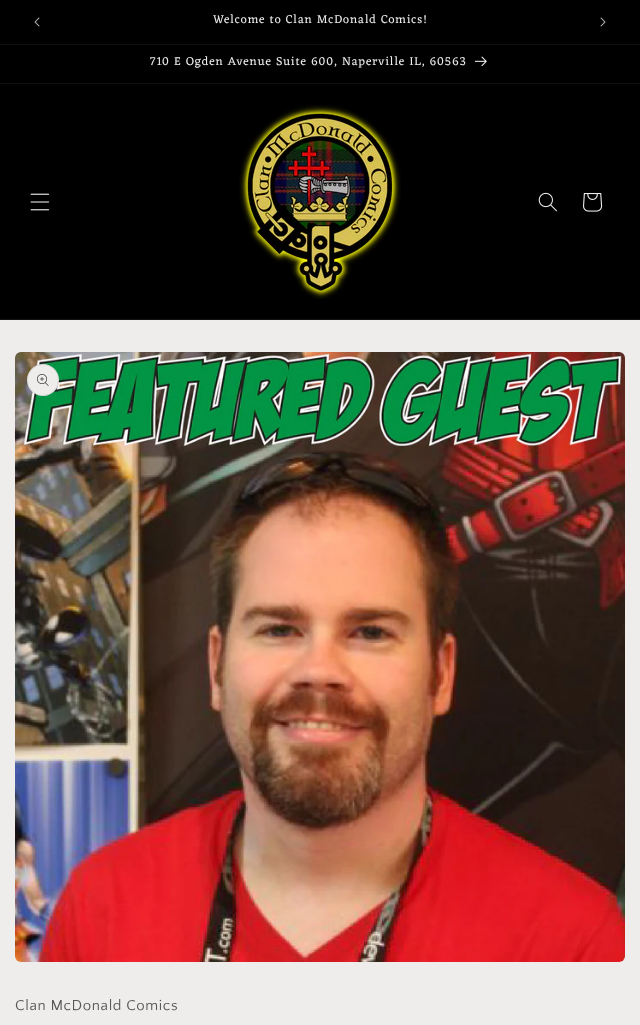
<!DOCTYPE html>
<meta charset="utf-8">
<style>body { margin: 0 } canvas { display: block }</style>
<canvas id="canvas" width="640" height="1025"></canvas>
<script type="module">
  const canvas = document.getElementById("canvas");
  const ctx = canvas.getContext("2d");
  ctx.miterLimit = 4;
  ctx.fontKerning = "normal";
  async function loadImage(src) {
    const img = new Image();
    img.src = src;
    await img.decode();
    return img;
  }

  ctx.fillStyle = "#efecec";
  ctx.fillRect(0, 0, 640, 1025);
  ctx.fillStyle = "#000000";
  ctx.fillRect(0, 0, 640, 44);
  ctx.fillStyle = "#131313";
  ctx.fillRect(0, 44, 640, 1);
  ctx.drawImage(await loadImage("img1.png"), 34, 17, 6, 10);
  ctx.letterSpacing = "1px";
  ctx.font = "12px Eczar";
  ctx.fillStyle = "#efecec";
  ctx.fillText("Welcome to Clan McDonald Comics!", 213, 23);
  ctx.drawImage(await loadImage("img2.png"), 600, 17, 6, 10);
  ctx.fillStyle = "#000000";
  ctx.fillRect(0, 45, 640, 38);
  ctx.fillStyle = "#131313";
  ctx.fillRect(0, 83, 640, 1);
  ctx.fillStyle = "#efecec";
  ctx.fillText("710 E Ogden Avenue Suite 600, Naperville IL, 60563", 150, 65);
  ctx.drawImage(await loadImage("img3.png"), 475, 56, 12, 11);
  ctx.fillStyle = "#000000";
  ctx.fillRect(0, 84, 640, 235);
  ctx.fillStyle = "#131313";
  ctx.fillRect(0, 319, 640, 1);
  ctx.drawImage(await loadImage("img4.png"), 30, 193, 20, 18);
  ctx.drawImage(await loadImage("img5.png"), 239, 105, 162, 194);
  ctx.drawImage(await loadImage("img6.png"), 538, 192, 19, 20);
  ctx.drawImage(await loadImage("img7.png"), 583, 193, 20, 19);
  ctx.drawImage(await loadImage("img8.png"), 15, 352, 610, 610);
  ctx.fillStyle = "#efecec";
  ctx.beginPath();
  ctx.arc(43, 380, 16, 0, Math.PI * 2);
  ctx.fill();
  ctx.beginPath();
  ctx.arc(43, 380, 15.5, 0, Math.PI * 2);
  ctx.strokeStyle = "rgba(37, 37, 37, 0.1)";
  ctx.stroke();
  ctx.drawImage(await loadImage("img9.png"), 37, 374, 12, 12);
  ctx.letterSpacing = "0.6px";
  ctx.font = "15px Quattrocento Sans";
  ctx.fillStyle = "#585757";
  ctx.fillText("Clan McDonald Comics", 15, 1010);
</script>
